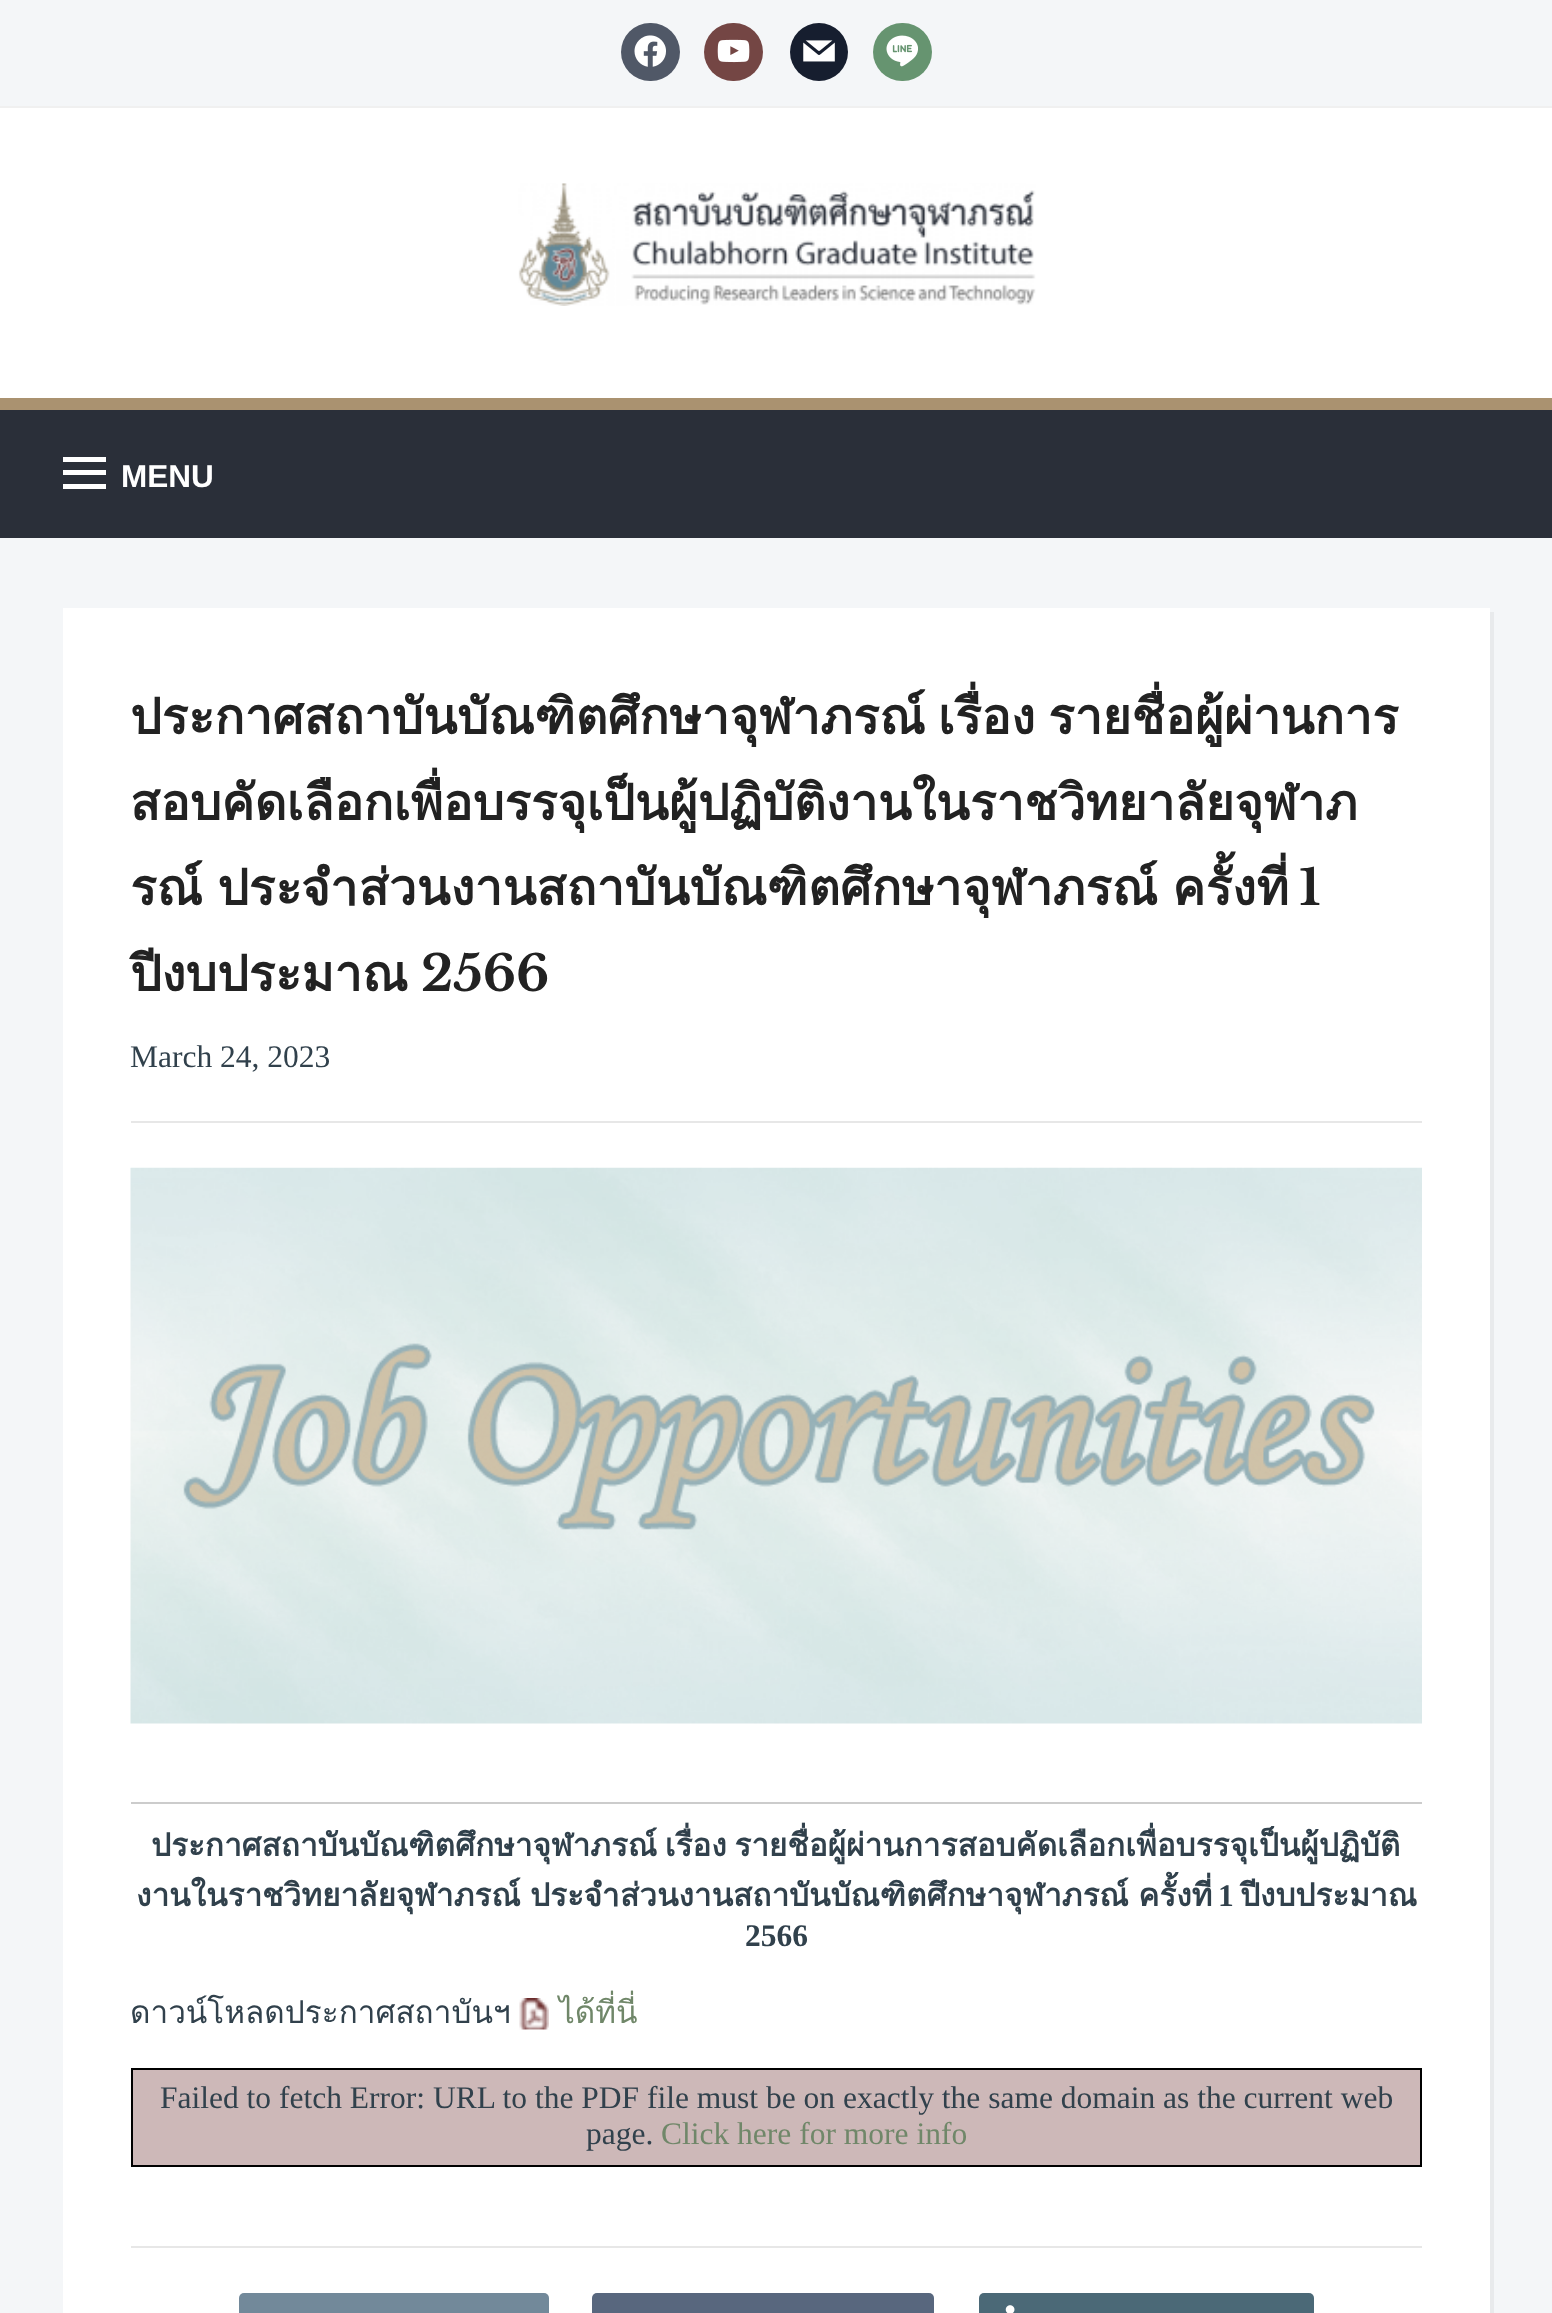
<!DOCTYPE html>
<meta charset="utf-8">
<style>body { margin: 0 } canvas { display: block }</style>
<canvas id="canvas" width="1552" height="2313"></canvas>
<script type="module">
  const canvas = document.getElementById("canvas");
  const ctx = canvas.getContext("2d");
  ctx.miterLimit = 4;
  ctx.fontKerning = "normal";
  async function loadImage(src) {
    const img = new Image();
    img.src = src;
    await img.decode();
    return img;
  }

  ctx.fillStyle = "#f4f6f8";
  ctx.fillRect(0, 0, 1552, 2313);
  ctx.fillStyle = "#ffffff";
  ctx.fillRect(0, 108, 1552, 290);
  ctx.fillStyle = "#f0f0f0";
  ctx.fillRect(0, 106, 1552, 2);
  ctx.fillStyle = "#505867";
  ctx.beginPath();
  ctx.roundRect(621, 23, 59, 58, 29);
  ctx.fill();
  ctx.drawImage(await loadImage("img1.png"), 634, 35, 32, 32);
  ctx.fillStyle = "#744644";
  ctx.beginPath();
  ctx.roundRect(704, 23, 59, 58, 29);
  ctx.fill();
  ctx.drawImage(await loadImage("img2.png"), 717, 39, 33, 24);
  ctx.fillStyle = "#161e2f";
  ctx.beginPath();
  ctx.arc(819, 52, 29, 0, Math.PI * 2);
  ctx.fill();
  ctx.drawImage(await loadImage("img3.png"), 803, 40, 32, 22);
  ctx.fillStyle = "#669470";
  ctx.beginPath();
  ctx.roundRect(873, 23, 59, 58, 29);
  ctx.fill();
  ctx.drawImage(await loadImage("img4.png"), 886, 35, 32, 32);
  ctx.drawImage(await loadImage("img5.png"), 518, 183, 518, 123);
  ctx.fillStyle = "#2a2f39";
  ctx.fillRect(0, 410, 1552, 128);
  ctx.fillStyle = "#aa9270";
  ctx.fillRect(0, 398, 1552, 12);
  ctx.fillStyle = "#ffffff";
  ctx.fillRect(63, 457, 43, 5);
  ctx.fillRect(63, 470, 43, 5);
  ctx.fillRect(63, 484, 43, 5);
  ctx.font = "bold 31.5px Liberation Sans";
  ctx.fillText("MENU", 121, 487);
  ctx.fillStyle = "#e8eaec";
  ctx.beginPath();
  ctx.moveTo(68, 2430);
  ctx.lineTo(68, 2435);
  ctx.lineTo(1494, 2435);
  ctx.lineTo(1494, 612);
  ctx.lineTo(1490, 612);
  ctx.lineTo(1490, 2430);
  ctx.closePath();
  ctx.fill();
  ctx.fillStyle = "#ffffff";
  ctx.fillRect(63, 608, 1427, 1705);
  ctx.wordSpacing = "-4px";
  ctx.font = "bold 49.5px Loma";
  ctx.fillStyle = "#222222";
  ctx.fillText("ประกาศสถาบันบัณฑิตศึกษาจุฬาภรณ์ เรื่อง รายชื่อผู้ผ่านการ", 130, 734);
  ctx.wordSpacing = "0px";
  ctx.fillText("สอบคัดเลือกเพื่อบรรจุเป็นผู้ปฏิบัติงานในราชวิทยาลัยจุฬาภ", 130, 820);
  ctx.wordSpacing = "-2px";
  ctx.fillText("รณ์ ประจำส่วนงานสถาบันบัณฑิตศึกษาจุฬาภรณ์ ครั้งที่", 130, 905);
  ctx.wordSpacing = "0px";
  ctx.font = "bold 49.5px Libre Baskerville";
  ctx.fillText("1", 1299, 905);
  ctx.font = "bold 49.5px Loma";
  ctx.fillText("ปีงบประมาณ", 130, 991);
  ctx.font = "bold 49.5px Libre Baskerville";
  ctx.fillText("2566", 421, 991);
  ctx.font = "31.5px Liberation Serif";
  ctx.fillStyle = "#31414c";
  ctx.fillText("March 24, 2023", 130, 1067);
  ctx.fillStyle = "#e7e7e7";
  ctx.fillRect(131, 1121, 1291, 2);
  ctx.drawImage(await loadImage("img6.png"), 130, 1167, 1292, 557);
  ctx.fillStyle = "#cccccc";
  ctx.fillRect(131, 1802, 1291, 2);
  ctx.wordSpacing = "-3px";
  ctx.font = "bold 31.5px Loma";
  ctx.fillStyle = "#31414c";
  ctx.fillText("ประกาศสถาบันบัณฑิตศึกษาจุฬาภรณ์ เรื่อง รายชื่อผู้ผ่านการสอบคัดเลือกเพื่อบรรจุเป็นผู้ปฏิบัติ", 151, 1856);
  ctx.wordSpacing = "-1px";
  ctx.fillText("งานในราชวิทยาลัยจุฬาภรณ์ ประจำส่วนงานสถาบันบัณฑิตศึกษาจุฬาภรณ์ ครั้งที่", 136, 1906);
  ctx.wordSpacing = "0px";
  ctx.font = "bold 31.5px Liberation Serif";
  ctx.fillText("1", 1218, 1906);
  ctx.font = "bold 31.5px Loma";
  ctx.fillText("ปีงบประมาณ", 1240, 1906);
  ctx.font = "bold 31.5px Liberation Serif";
  ctx.fillText("2566", 745, 1946);
  ctx.font = "31.5px Loma";
  ctx.fillText("ดาวน์โหลดประกาศสถาบันฯ", 130, 2023);
  ctx.drawImage(await loadImage("img7.png"), 519, 1998, 30, 32);
  ctx.fillStyle = "#708769";
  ctx.fillText("ได้ที่นี่", 559, 2023);
  ctx.strokeStyle = "#000000";
  ctx.lineWidth = 2;
  ctx.strokeRect(132, 2069, 1289, 97);
  ctx.fillStyle = "#cdb8b8";
  ctx.fillRect(133, 2070, 1287, 95);
  ctx.font = "31.5px Liberation Serif";
  ctx.fillStyle = "#31414c";
  ctx.fillText("Failed to fetch Error: URL to the PDF file must be on exactly the same domain as the current web", 160, 2108);
  ctx.fillText("page.", 586, 2144);
  ctx.fillStyle = "#708769";
  ctx.fillText("Click here for more info", 661, 2144);
  ctx.fillStyle = "#e7e7e7";
  ctx.fillRect(131, 2246, 1291, 2);
  ctx.fillStyle = "#72899a";
  ctx.beginPath();
  ctx.roundRect(239, 2293, 310, 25, 5);
  ctx.fill();
  ctx.fillStyle = "#58677e";
  ctx.beginPath();
  ctx.roundRect(592, 2293, 342, 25, 5);
  ctx.fill();
  ctx.fillStyle = "#4b6977";
  ctx.beginPath();
  ctx.roundRect(979, 2293, 335, 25, 5);
  ctx.fill();
  ctx.drawImage(await loadImage("img8.png"), 1005, 2305, 10, 8);
</script>
